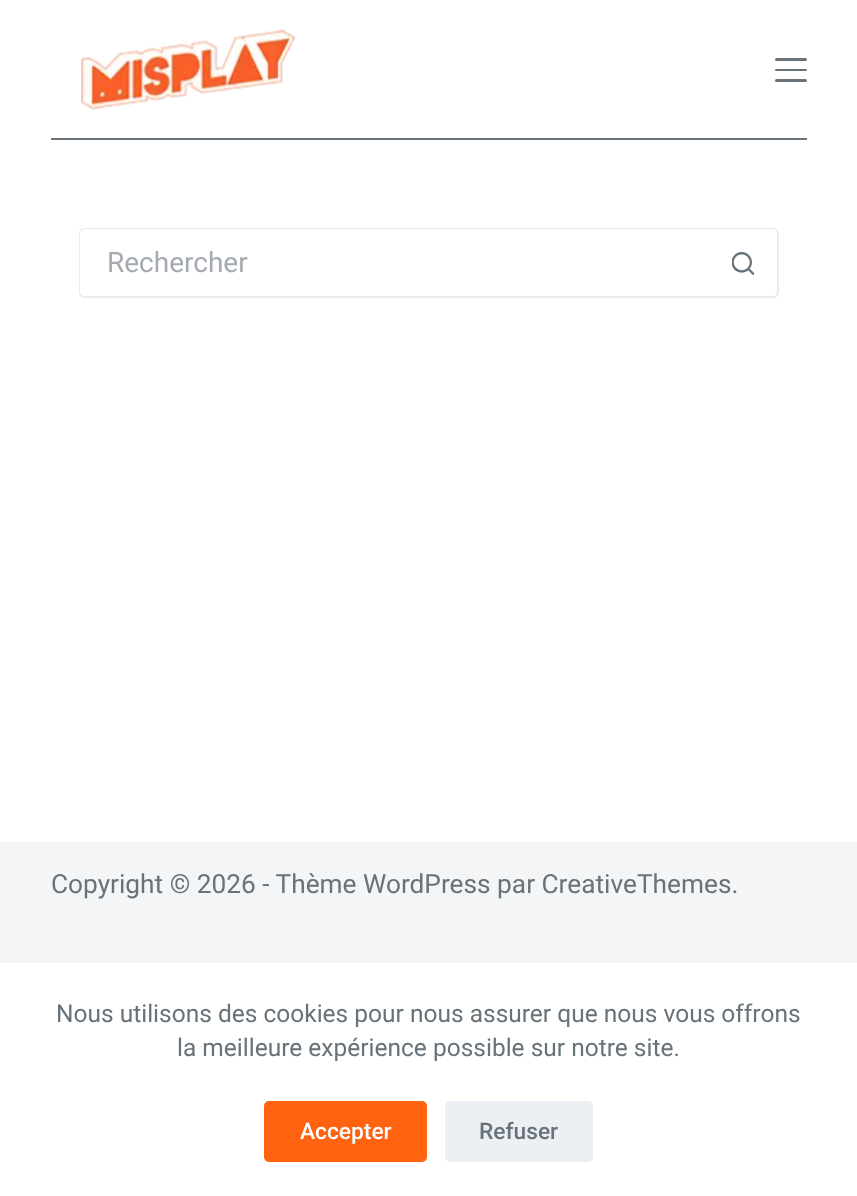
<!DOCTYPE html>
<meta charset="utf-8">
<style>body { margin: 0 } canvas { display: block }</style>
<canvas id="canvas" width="857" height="1196"></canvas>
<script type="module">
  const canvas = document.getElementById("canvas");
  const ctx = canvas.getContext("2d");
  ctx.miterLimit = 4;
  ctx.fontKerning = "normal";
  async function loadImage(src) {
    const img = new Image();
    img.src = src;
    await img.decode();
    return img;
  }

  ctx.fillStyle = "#ffffff";
  ctx.fillRect(0, 0, 857, 1196);
  ctx.fillStyle = "#687279";
  ctx.fillRect(51, 138, 756, 2);
  ctx.drawImage(await loadImage("img1.png"), 81, 29, 215, 81);
  ctx.beginPath();
  ctx.roundRect(775, 58, 32, 3, 1.5);
  ctx.fill();
  ctx.beginPath();
  ctx.roundRect(775, 69, 32, 2, 1);
  ctx.fill();
  ctx.beginPath();
  ctx.roundRect(775, 79, 32, 3, 1.5);
  ctx.fill();
  ctx.fillStyle = "#e9ebec";
  ctx.beginPath();
  ctx.moveTo(84, 228);
  ctx.lineTo(709, 228);
  ctx.lineTo(709, 298);
  ctx.lineTo(84, 298);
  ctx.bezierCurveTo(81, 298, 79, 295, 79, 292);
  ctx.lineTo(79, 233);
  ctx.bezierCurveTo(79, 230, 81, 228, 84, 228);
  ctx.closePath();
  ctx.moveTo(84, 229);
  ctx.lineTo(709, 229);
  ctx.lineTo(709, 296);
  ctx.lineTo(84, 296);
  ctx.bezierCurveTo(82, 296, 80, 294, 80, 292);
  ctx.lineTo(80, 233);
  ctx.bezierCurveTo(80, 231, 82, 229, 84, 229);
  ctx.closePath();
  ctx.fill("evenodd");
  ctx.font = "28px Roboto";
  ctx.fillStyle = "#a4aaaf";
  ctx.fillText("Rechercher", 107, 272);
  ctx.fillStyle = "#e9ebec";
  ctx.beginPath();
  ctx.moveTo(709, 228);
  ctx.lineTo(774, 228);
  ctx.bezierCurveTo(776, 228, 779, 230, 779, 233);
  ctx.lineTo(779, 292);
  ctx.bezierCurveTo(779, 295, 776, 298, 774, 298);
  ctx.lineTo(709, 298);
  ctx.closePath();
  ctx.moveTo(709, 229);
  ctx.lineTo(774, 229);
  ctx.bezierCurveTo(775, 229, 777, 231, 777, 233);
  ctx.lineTo(777, 292);
  ctx.bezierCurveTo(777, 294, 775, 296, 774, 296);
  ctx.lineTo(709, 296);
  ctx.closePath();
  ctx.fill("evenodd");
  ctx.drawImage(await loadImage("img2.png"), 732, 252, 22, 23);
  ctx.fillStyle = "#f4f5f6";
  ctx.fillRect(0, 842, 857, 121);
  ctx.font = "26.25px Roboto";
  ctx.fillStyle = "#687279";
  ctx.fillText("Copyright © 2026 - Thème WordPress par CreativeThemes.", 51, 893);
  ctx.font = "24.5px Roboto";
  ctx.fillText("Nous utilisons des cookies pour nous assurer que nous vous offrons", 56, 1022);
  ctx.fillText("la meilleure expérience possible sur notre site.", 177, 1056);
  ctx.fillStyle = "#ff6310";
  ctx.beginPath();
  ctx.roundRect(264, 1101, 163, 61, 5);
  ctx.fill();
  ctx.font = "500 22.75px Roboto";
  ctx.fillStyle = "#ffffff";
  ctx.fillText("Accepter", 300, 1139);
  ctx.fillStyle = "#eceff3";
  ctx.beginPath();
  ctx.roundRect(445, 1101, 148, 61, 5);
  ctx.fill();
  ctx.fillStyle = "#687279";
  ctx.fillText("Refuser", 479, 1139);
</script>
